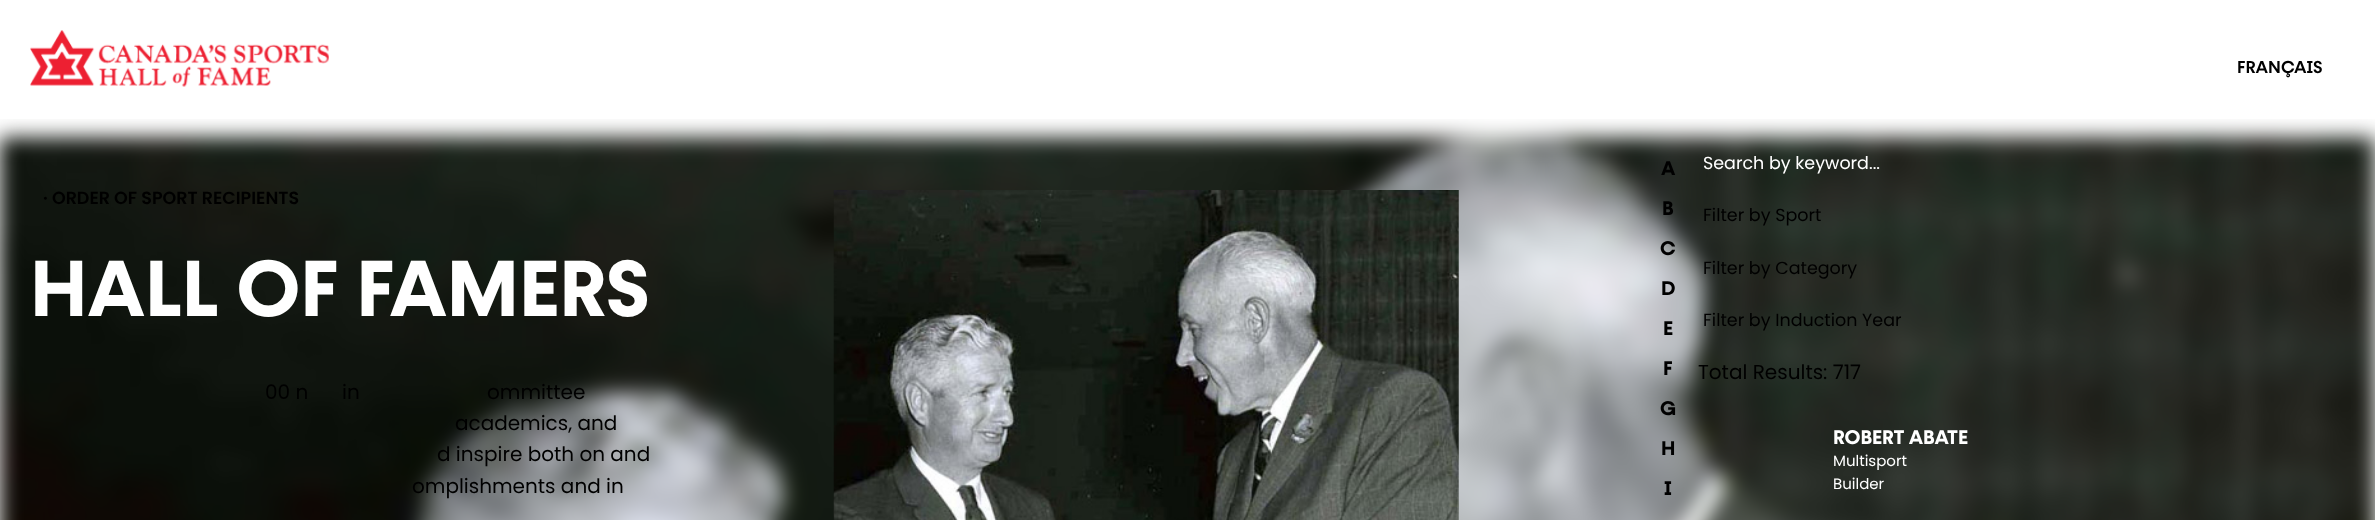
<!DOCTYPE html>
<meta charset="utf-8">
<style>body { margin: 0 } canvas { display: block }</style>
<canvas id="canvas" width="2375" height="520"></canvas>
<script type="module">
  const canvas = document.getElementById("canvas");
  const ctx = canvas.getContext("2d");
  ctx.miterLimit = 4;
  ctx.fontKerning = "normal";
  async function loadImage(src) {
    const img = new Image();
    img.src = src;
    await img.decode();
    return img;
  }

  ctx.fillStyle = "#ffffff";
  ctx.fillRect(0, 0, 2375, 520);
  ctx.drawImage(await loadImage("img1.png"), 30, 30, 299, 57);
  ctx.font = "600 17.5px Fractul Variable";
  ctx.fillStyle = "#000000";
  ctx.fillText("FRANÇAIS", 2237, 73);
  ctx.drawImage(await loadImage("img2.png"), 0, 119, 2375, 401);
  ctx.font = "600 17.5px Poppins";
  ctx.fillText("· ORDER OF SPORT RECIPIENTS", 43, 204);
  ctx.font = "bold 80px Fractul Variable";
  ctx.fillStyle = "#ffffff";
  ctx.fillText("HALL OF FAMERS", 30, 316);
  ctx.font = "20px Poppins";
  ctx.fillStyle = "#000000";
  ctx.fillText("00 n", 265, 399);
  ctx.fillText("in", 342, 399);
  ctx.fillText("ommittee", 487, 399);
  ctx.fillText("academics, and", 455, 430);
  ctx.fillText("d inspire both on and", 437, 461);
  ctx.fillText("omplishments and in", 412, 493);
  ctx.drawImage(await loadImage("img3.png"), 833, 190, 626, 330);
  ctx.font = "bold 20px Fractul Variable";
  ctx.fillText("A", 1661, 175);
  ctx.fillText("B", 1662, 215);
  ctx.fillText("C", 1660, 255);
  ctx.fillText("D", 1661, 295);
  ctx.fillText("E", 1663, 335);
  ctx.fillText("F", 1663, 375);
  ctx.fillText("G", 1660, 415);
  ctx.fillText("H", 1661, 455);
  ctx.fillText("I", 1664, 495);
  ctx.font = "17.5px Poppins";
  ctx.fillStyle = "#ffffff";
  ctx.fillText("Search by keyword...", 1703, 169);
  ctx.fillStyle = "#000000";
  ctx.fillText("Filter by Sport", 1703, 221);
  ctx.fillText("Filter by Category", 1703, 274);
  ctx.fillText("Filter by Induction Year", 1703, 326);
  ctx.font = "20px Poppins";
  ctx.fillText("Total Results: 717", 1698, 379);
  ctx.font = "bold 20px Fractul Variable";
  ctx.fillStyle = "#ffffff";
  ctx.fillText("ROBERT ABATE", 1833, 444);
  ctx.font = "15px Poppins";
  ctx.fillText("Multisport", 1833, 466);
  ctx.fillText("Builder", 1833, 489);
</script>
